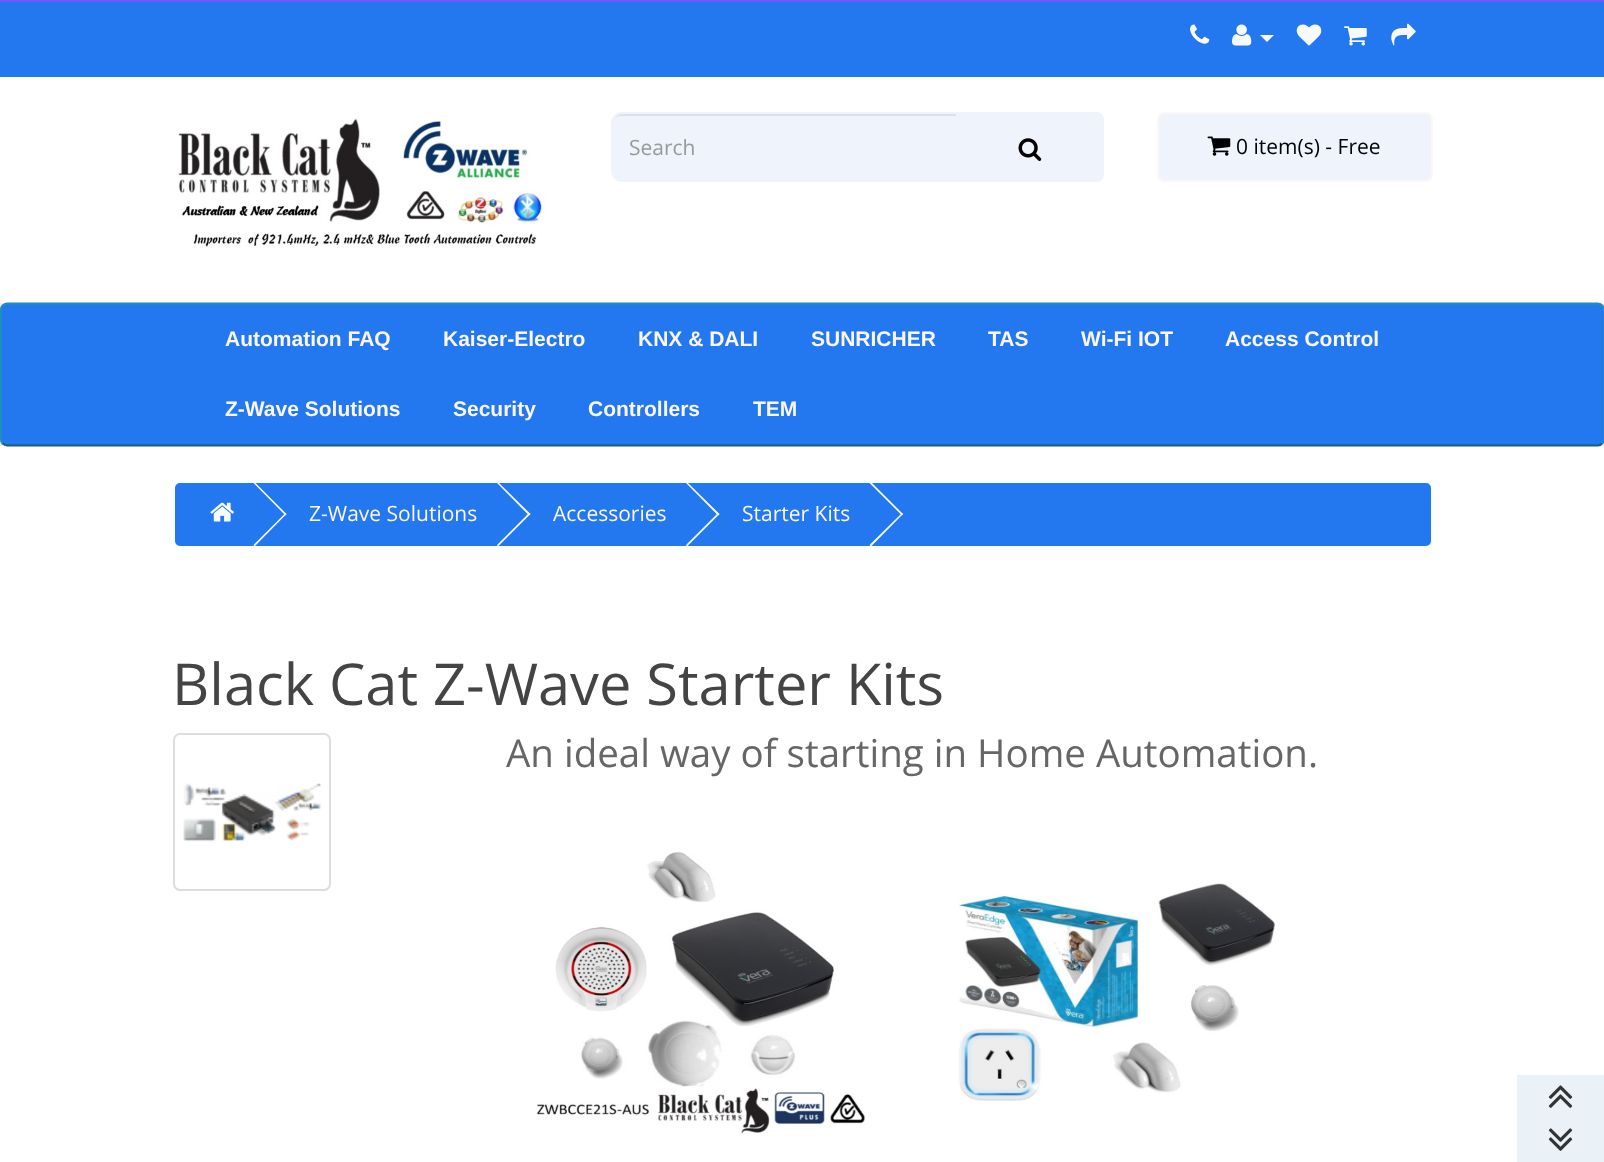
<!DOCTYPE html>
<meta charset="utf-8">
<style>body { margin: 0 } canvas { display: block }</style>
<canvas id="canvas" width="1604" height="1162"></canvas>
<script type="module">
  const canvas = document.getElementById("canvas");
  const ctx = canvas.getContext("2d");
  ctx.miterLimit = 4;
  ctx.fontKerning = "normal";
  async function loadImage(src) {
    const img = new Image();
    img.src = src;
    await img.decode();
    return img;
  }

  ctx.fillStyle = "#ffffff";
  ctx.fillRect(0, 0, 1604, 1162);
  ctx.fillStyle = "#2377ef";
  ctx.fillRect(0, 2, 1604, 75);
  ctx.fillStyle = "#6c59fe";
  ctx.fillRect(0, 0, 1604, 2);
  ctx.drawImage(await loadImage("img1.png"), 1190, 24, 20, 20);
  ctx.drawImage(await loadImage("img2.png"), 1232, 24, 20, 22);
  ctx.fillStyle = "#f7fafb";
  ctx.beginPath();
  ctx.moveTo(1260, 35);
  ctx.lineTo(1274, 35);
  ctx.lineTo(1267, 42);
  ctx.closePath();
  ctx.fill();
  ctx.drawImage(await loadImage("img3.png"), 1296, 24, 26, 22);
  ctx.drawImage(await loadImage("img4.png"), 1344, 26, 23, 20);
  ctx.drawImage(await loadImage("img5.png"), 1391, 23, 25, 23);
  ctx.drawImage(await loadImage("img6.png"), 178, 118, 368, 129);
  ctx.fillStyle = "#eff4fc";
  ctx.beginPath();
  ctx.roundRect(957, 113, 146, 68, [0, 6, 6, 0]);
  ctx.fill();
  ctx.strokeStyle = "#eff4fc";
  ctx.lineWidth = 2;
  ctx.stroke();
  ctx.beginPath();
  ctx.roundRect(611, 112, 346, 70, [11, 0, 0, 11]);
  ctx.fill();
  ctx.fillStyle = "#dde2e9";
  ctx.beginPath();
  ctx.moveTo(621, 116);
  ctx.lineTo(956, 116);
  ctx.lineTo(956, 114);
  ctx.lineTo(622, 114);
  ctx.bezierCurveTo(619, 114, 616, 116, 614, 119);
  ctx.bezierCurveTo(616, 117, 618, 116, 621, 116);
  ctx.closePath();
  ctx.fill();
  ctx.font = "21px Open Sans";
  ctx.fillStyle = "#999999";
  ctx.fillText("Search", 629, 155);
  ctx.drawImage(await loadImage("img7.png"), 1018, 138, 24, 23);
  ctx.fillStyle = "#eff4fc";
  ctx.beginPath();
  ctx.roundRect(1158, 113, 274, 68, 6);
  ctx.fill();
  ctx.strokeStyle = "#fbf7f7";
  ctx.stroke();
  ctx.drawImage(await loadImage("img8.png"), 1207, 136, 24, 20);
  ctx.fillStyle = "#000205";
  ctx.fillText("0 item(s) - Free", 1236, 154);
  ctx.fillStyle = "#eeeeee";
  ctx.fillRect(0, 303, 1604, 143);
  ctx.fillStyle = "#2377ef";
  ctx.beginPath();
  ctx.roundRect(0, 303, 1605, 143, 7);
  ctx.fill();
  ctx.beginPath();
  ctx.moveTo(1602, 443.5);
  ctx.bezierCurveTo(1601, 444.5, 1599.5, 445.5, 1598, 445.5);
  ctx.lineTo(7, 445.5);
  ctx.bezierCurveTo(5.5, 445.5, 4, 444.5, 2.5, 443.5);
  ctx.strokeStyle = "#145e7a";
  ctx.lineWidth = 1.8;
  ctx.stroke();
  ctx.beginPath();
  ctx.moveTo(2.5, 443.5);
  ctx.bezierCurveTo(1.5, 442.5, 1, 441, 1, 439);
  ctx.lineTo(1, 310);
  ctx.bezierCurveTo(1, 308, 1.5, 306.5, 2.5, 305.5);
  ctx.bezierCurveTo(4, 304.5, 5.5, 303.5, 7, 303.5);
  ctx.lineTo(1598, 303.5);
  ctx.bezierCurveTo(1599.5, 303.5, 1601, 304.5, 1602, 305.5);
  ctx.bezierCurveTo(1603, 306.5, 1604, 308, 1604, 310);
  ctx.lineTo(1604, 439);
  ctx.bezierCurveTo(1604, 441, 1603, 442.5, 1602, 443.5);
  ctx.strokeStyle = "#1f90bb";
  ctx.stroke();
  ctx.font = "bold 21px Liberation Sans";
  ctx.fillStyle = "#fbf7f7";
  ctx.fillText("Automation FAQ", 225, 346);
  ctx.fillText("Kaiser-Electro", 443, 346);
  ctx.fillText("KNX & DALI", 638, 346);
  ctx.fillText("SUNRICHER", 811, 346);
  ctx.fillText("TAS", 988, 346);
  ctx.fillText("Wi-Fi IOT", 1081, 346);
  ctx.fillText("Access Control", 1225, 346);
  ctx.fillText("Z-Wave Solutions", 225, 416);
  ctx.fillText("Security", 453, 416);
  ctx.fillText("Controllers", 588, 416);
  ctx.fillText("TEM", 753, 416);
  ctx.fillStyle = "#2377ef";
  ctx.beginPath();
  ctx.roundRect(174, 482, 1258, 65, 6);
  ctx.fill();
  ctx.strokeStyle = "#f7fcfc";
  ctx.lineWidth = 2;
  ctx.stroke();
  ctx.drawImage(await loadImage("img9.png"), 210, 502, 24, 20);
  ctx.fillStyle = "#f7fcfc";
  ctx.beginPath();
  ctx.moveTo(253.5, 483);
  ctx.lineTo(254.5, 482);
  ctx.lineTo(286.5, 514);
  ctx.lineTo(285.5, 515.5);
  ctx.closePath();
  ctx.fill();
  ctx.beginPath();
  ctx.moveTo(253.5, 545);
  ctx.lineTo(285.5, 513);
  ctx.lineTo(286.5, 514);
  ctx.lineTo(254.5, 546.5);
  ctx.closePath();
  ctx.fill();
  ctx.font = "21px Open Sans";
  ctx.fillStyle = "#fbf7f7";
  ctx.fillText("Z-Wave Solutions", 309, 521);
  ctx.fillStyle = "#f7fcfc";
  ctx.beginPath();
  ctx.moveTo(497, 483);
  ctx.lineTo(498, 482);
  ctx.lineTo(530.5, 514);
  ctx.lineTo(529, 515.5);
  ctx.closePath();
  ctx.fill();
  ctx.beginPath();
  ctx.moveTo(497, 545);
  ctx.lineTo(529, 513);
  ctx.lineTo(530.5, 514);
  ctx.lineTo(498, 546.5);
  ctx.closePath();
  ctx.fill();
  ctx.fillStyle = "#fbf7f7";
  ctx.fillText("Accessories", 553, 521);
  ctx.fillStyle = "#f7fcfc";
  ctx.beginPath();
  ctx.moveTo(686, 483);
  ctx.lineTo(687, 482);
  ctx.lineTo(719.5, 514);
  ctx.lineTo(718, 515.5);
  ctx.closePath();
  ctx.fill();
  ctx.beginPath();
  ctx.moveTo(686, 545);
  ctx.lineTo(718, 513);
  ctx.lineTo(719.5, 514);
  ctx.lineTo(687, 546.5);
  ctx.closePath();
  ctx.fill();
  ctx.fillStyle = "#fbf7f7";
  ctx.fillText("Starter Kits", 742, 521);
  ctx.fillStyle = "#f7fcfc";
  ctx.beginPath();
  ctx.moveTo(869.5, 483);
  ctx.lineTo(871, 482);
  ctx.lineTo(903, 514);
  ctx.lineTo(902, 515.5);
  ctx.closePath();
  ctx.fill();
  ctx.beginPath();
  ctx.moveTo(869.5, 545);
  ctx.lineTo(902, 513);
  ctx.lineTo(903, 514);
  ctx.lineTo(871, 546.5);
  ctx.closePath();
  ctx.fill();
  ctx.font = "57.75px Open Sans";
  ctx.fillStyle = "#444444";
  ctx.fillText("Black Cat Z-Wave Starter Kits", 172, 705);
  ctx.beginPath();
  ctx.roundRect(174, 734, 156, 156, 6);
  ctx.strokeStyle = "#dddddd";
  ctx.stroke();
  ctx.drawImage(await loadImage("img10.png"), 183, 783, 138, 59);
  ctx.font = "38.5px Open Sans";
  ctx.fillStyle = "#666666";
  ctx.fillText("An ideal way of starting in Home Automation.", 506, 767);
  ctx.drawImage(await loadImage("img11.png"), 536, 851, 329, 283);
  ctx.drawImage(await loadImage("img12.png"), 958, 883, 317, 218);
  ctx.fillStyle = "#eaf1f7";
  ctx.fillRect(1517, 1075, 87, 43);
  ctx.drawImage(await loadImage("img13.png"), 1548, 1085, 25, 23);
  ctx.fillRect(1517, 1118, 87, 44);
  ctx.drawImage(await loadImage("img14.png"), 1548, 1128, 25, 23);
</script>
